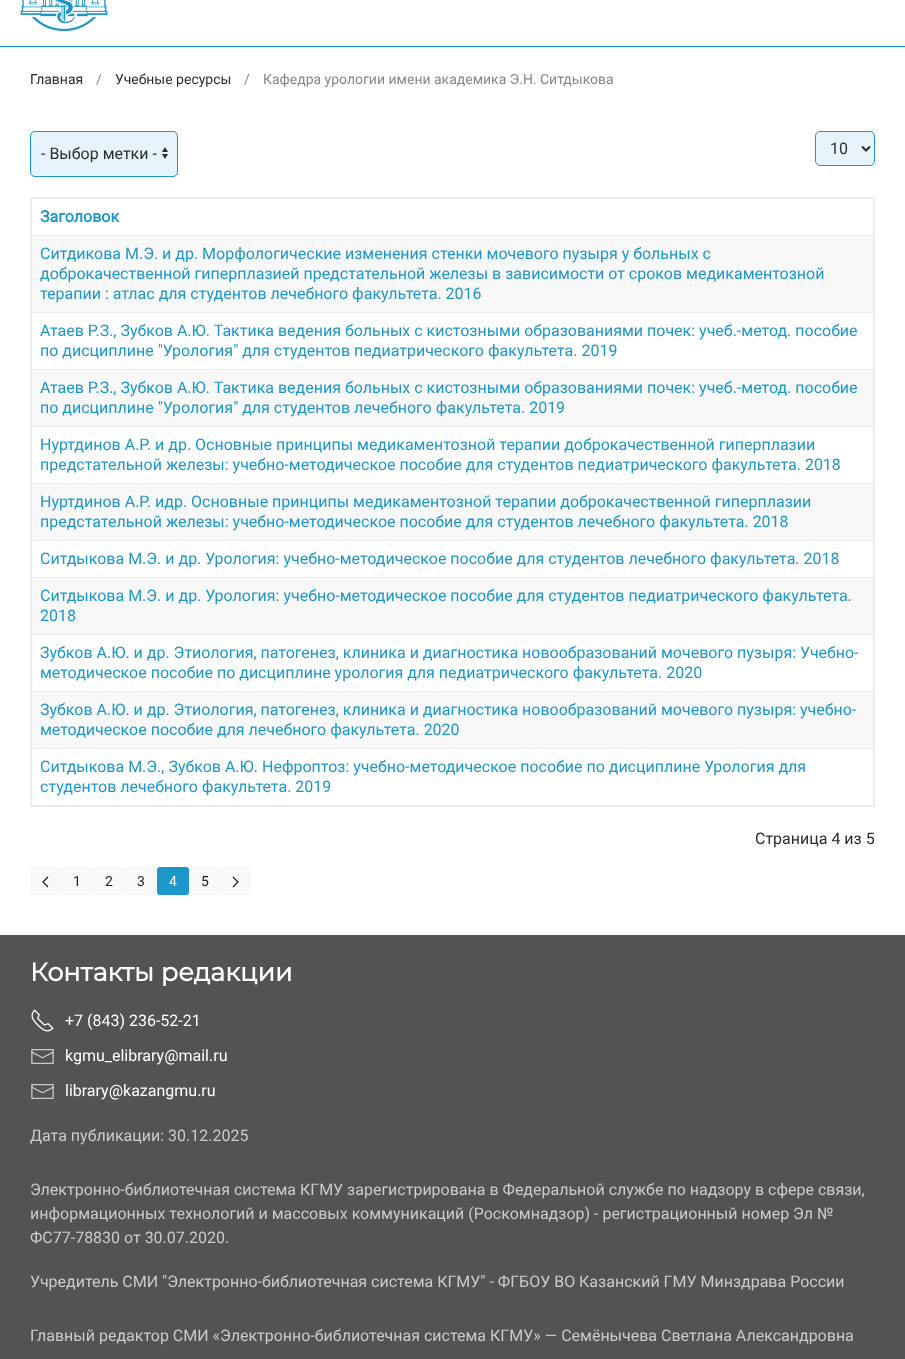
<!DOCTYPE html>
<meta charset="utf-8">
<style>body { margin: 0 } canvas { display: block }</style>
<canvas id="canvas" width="905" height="1359"></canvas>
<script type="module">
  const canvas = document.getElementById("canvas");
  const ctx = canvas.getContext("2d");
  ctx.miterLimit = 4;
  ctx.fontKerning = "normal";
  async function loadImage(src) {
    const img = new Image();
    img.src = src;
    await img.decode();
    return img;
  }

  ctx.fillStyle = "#ffffff";
  ctx.fillRect(0, 0, 905, 1359);
  ctx.fillStyle = "#00a0bc";
  ctx.fillRect(0, 46, 905, 1);
  ctx.drawImage(await loadImage("img1.png"), 20, 0, 88, 31);
  ctx.font = "14px Roboto";
  ctx.fillStyle = "#2c2c2c";
  ctx.fillText("Главная", 30, 84);
  ctx.fillStyle = "#868686";
  ctx.fillText("/", 96, 84);
  ctx.fillStyle = "#2c2c2c";
  ctx.fillText("Учебные ресурсы", 115, 84);
  ctx.fillStyle = "#868686";
  ctx.fillText("/", 244, 84);
  ctx.fillText("Кафедра урологии имени академика Э.Н. Ситдыкова", 263, 84);
  ctx.fillStyle = "#e7f3fb";
  ctx.beginPath();
  ctx.roundRect(30, 131, 148, 46, 5);
  ctx.fill();
  ctx.drawImage(await loadImage("img2.png"), 162, 147, 6, 12);
  ctx.beginPath();
  ctx.roundRect(30.5, 131.5, 147, 45, 4.5);
  ctx.strokeStyle = "#1c97ca";
  ctx.stroke();
  ctx.font = "16px Roboto";
  ctx.fillStyle = "#2c2c2c";
  ctx.fillText("- Выбор метки -", 41, 159);
  ctx.fillStyle = "#e7f3fb";
  ctx.beginPath();
  ctx.roundRect(815.5, 131.5, 59, 34, 4.5);
  ctx.fill();
  ctx.stroke();
  ctx.beginPath();
  ctx.moveTo(862, 146.5);
  ctx.lineTo(866, 150.5);
  ctx.lineTo(870, 146.5);
  ctx.strokeStyle = "#2c2c2c";
  ctx.lineWidth = 2;
  ctx.stroke();
  ctx.fillStyle = "#2c2c2c";
  ctx.fillText("10", 830, 154);
  ctx.fillStyle = "#ededed";
  ctx.fillRect(30, 197, 845, 2);
  ctx.fillRect(31, 235, 844, 1);
  ctx.fillRect(31, 312, 844, 1);
  ctx.fillRect(31, 369, 844, 1);
  ctx.fillRect(31, 426, 844, 1);
  ctx.fillRect(31, 483, 844, 1);
  ctx.fillRect(31, 540, 844, 1);
  ctx.fillRect(31, 577, 844, 1);
  ctx.fillRect(31, 634, 844, 1);
  ctx.fillRect(31, 691, 844, 1);
  ctx.fillRect(31, 748, 844, 1);
  ctx.fillRect(873, 197, 2, 610);
  ctx.fillRect(30, 805, 845, 2);
  ctx.font = "bold 16px Roboto";
  ctx.fillStyle = "#1c97ca";
  ctx.fillText("Заголовок", 40, 222);
  ctx.fillStyle = "#f8f8f8";
  ctx.fillRect(32, 236, 841, 76);
  ctx.font = "16px Roboto";
  ctx.fillStyle = "#1c97ca";
  ctx.fillText("Ситдикова М.Э. и др. Морфологические изменения стенки мочевого пузыря у больных с", 40, 259);
  ctx.fillText("доброкачественной гиперплазией предстательной железы в зависимости от сроков медикаментозной", 40, 279);
  ctx.fillText("терапии : атлас для студентов лечебного факультета. 2016", 40, 299);
  ctx.fillText("Атаев Р.З., Зубков А.Ю. Тактика ведения больных с кистозными образованиями почек: учеб.-метод. пособие", 40, 336);
  ctx.fillText("по дисциплине \"Урология\" для студентов педиатрического факультета. 2019", 40, 356);
  ctx.fillStyle = "#f8f8f8";
  ctx.fillRect(32, 370, 841, 56);
  ctx.fillStyle = "#1c97ca";
  ctx.fillText("Атаев Р.З., Зубков А.Ю. Тактика ведения больных с кистозными образованиями почек: учеб.-метод. пособие", 40, 393);
  ctx.fillText("по дисциплине \"Урология\" для студентов лечебного факультета. 2019", 40, 413);
  ctx.fillText("Нуртдинов А.Р. и др. Основные принципы медикаментозной терапии доброкачественной гиперплазии", 40, 450);
  ctx.fillText("предстательной железы: учебно-методическое пособие для студентов педиатрического факультета. 2018", 40, 470);
  ctx.fillStyle = "#f8f8f8";
  ctx.fillRect(32, 484, 841, 56);
  ctx.fillStyle = "#1c97ca";
  ctx.fillText("Нуртдинов А.Р. идр. Основные принципы медикаментозной терапии доброкачественной гиперплазии", 40, 507);
  ctx.fillText("предстательной железы: учебно-методическое пособие для студентов лечебного факультета. 2018", 40, 527);
  ctx.fillText("Ситдыкова М.Э. и др. Урология: учебно-методическое пособие для студентов лечебного факультета. 2018", 40, 564);
  ctx.fillStyle = "#f8f8f8";
  ctx.fillRect(32, 578, 841, 56);
  ctx.fillStyle = "#1c97ca";
  ctx.fillText("Ситдыкова М.Э. и др. Урология: учебно-методическое пособие для студентов педиатрического факультета.", 40, 601);
  ctx.fillText("2018", 40, 621);
  ctx.fillText("Зубков А.Ю. и др. Этиология, патогенез, клиника и диагностика новообразований мочевого пузыря: Учебно-", 40, 658);
  ctx.fillText("методическое пособие по дисциплине урология для педиатрического факультета. 2020", 40, 678);
  ctx.fillStyle = "#f8f8f8";
  ctx.fillRect(32, 692, 841, 56);
  ctx.fillStyle = "#1c97ca";
  ctx.fillText("Зубков А.Ю. и др. Этиология, патогенез, клиника и диагностика новообразований мочевого пузыря: учебно-", 40, 715);
  ctx.fillText("методическое пособие для лечебного факультета. 2020", 40, 735);
  ctx.fillStyle = "#ededed";
  ctx.fillRect(30, 197, 2, 610);
  ctx.fillStyle = "#1c97ca";
  ctx.fillText("Ситдыкова М.Э., Зубков А.Ю. Нефроптоз: учебно-методическое пособие по дисциплине Урология для", 40, 772);
  ctx.fillText("студентов лечебного факультета. 2019", 40, 792);
  ctx.fillStyle = "#2c2c2c";
  ctx.fillText("Страница 4 из 5", 755, 844);
  ctx.fillStyle = "#f8f8f8";
  ctx.beginPath();
  ctx.roundRect(30, 867, 31, 28, 3);
  ctx.fill();
  ctx.beginPath();
  ctx.moveTo(48, 877);
  ctx.lineTo(43, 882);
  ctx.lineTo(48, 887);
  ctx.strokeStyle = "#1c1c1c";
  ctx.lineWidth = 1.2;
  ctx.stroke();
  ctx.beginPath();
  ctx.roundRect(61, 867, 32, 28, 3);
  ctx.fill();
  ctx.font = "14px Roboto";
  ctx.fillStyle = "#1c1c1c";
  ctx.fillText("1", 73, 886);
  ctx.fillStyle = "#f8f8f8";
  ctx.beginPath();
  ctx.roundRect(93, 867, 32, 28, 3);
  ctx.fill();
  ctx.fillStyle = "#1c1c1c";
  ctx.fillText("2", 105, 886);
  ctx.fillStyle = "#f8f8f8";
  ctx.beginPath();
  ctx.roundRect(125, 867, 32, 28, 3);
  ctx.fill();
  ctx.fillStyle = "#1c1c1c";
  ctx.fillText("3", 137, 886);
  ctx.fillStyle = "#1c97ca";
  ctx.beginPath();
  ctx.roundRect(157, 867, 32, 28, 3);
  ctx.fill();
  ctx.fillStyle = "#ffffff";
  ctx.fillText("4", 169, 886);
  ctx.fillStyle = "#f8f8f8";
  ctx.beginPath();
  ctx.roundRect(189, 867, 31, 28, 3);
  ctx.fill();
  ctx.fillStyle = "#1c1c1c";
  ctx.fillText("5", 201, 886);
  ctx.fillStyle = "#f8f8f8";
  ctx.beginPath();
  ctx.roundRect(220, 867, 31, 28, 3);
  ctx.fill();
  ctx.beginPath();
  ctx.moveTo(233, 877);
  ctx.lineTo(238, 882);
  ctx.lineTo(233, 887);
  ctx.stroke();
  ctx.fillStyle = "#535353";
  ctx.fillRect(0, 935, 905, 424);
  ctx.font = "bold 25.5px Montserrat";
  ctx.fillStyle = "#ffffff";
  ctx.fillText("Контакты редакции", 30, 981);
  ctx.drawImage(await loadImage("img3.png"), 31, 1009, 23, 23);
  ctx.font = "16px Roboto";
  ctx.fillText("+7 (843) 236-52-21", 65, 1026);
  ctx.drawImage(await loadImage("img4.png"), 31, 1049, 23, 15);
  ctx.fillText("kgmu_elibrary@mail.ru", 65, 1061);
  ctx.drawImage(await loadImage("img4.png"), 31, 1084, 23, 15);
  ctx.fillText("library@kazangmu.ru", 65, 1096);
  ctx.fillStyle = "#cbcbcb";
  ctx.fillText("Дата публикации: 30.12.2025", 30, 1141);
  ctx.fillText("Электронно-библиотечная система КГМУ зарегистрирована в Федеральной службе по надзору в сфере связи,", 30, 1195);
  ctx.fillText("информационных технологий и массовых коммуникаций (Роскомнадзор) - регистрационный номер Эл №", 30, 1219);
  ctx.fillText("ФС77-78830 от 30.07.2020.", 30, 1243);
  ctx.fillText("Учредитель СМИ \"Электронно-библиотечная система КГМУ\" - ФГБОУ ВО Казанский ГМУ Минздрава России", 30, 1287);
  ctx.fillText("Главный редактор СМИ «Электронно-библиотечная система КГМУ» — Семёнычева Светлана Александровна", 30, 1341);
</script>
